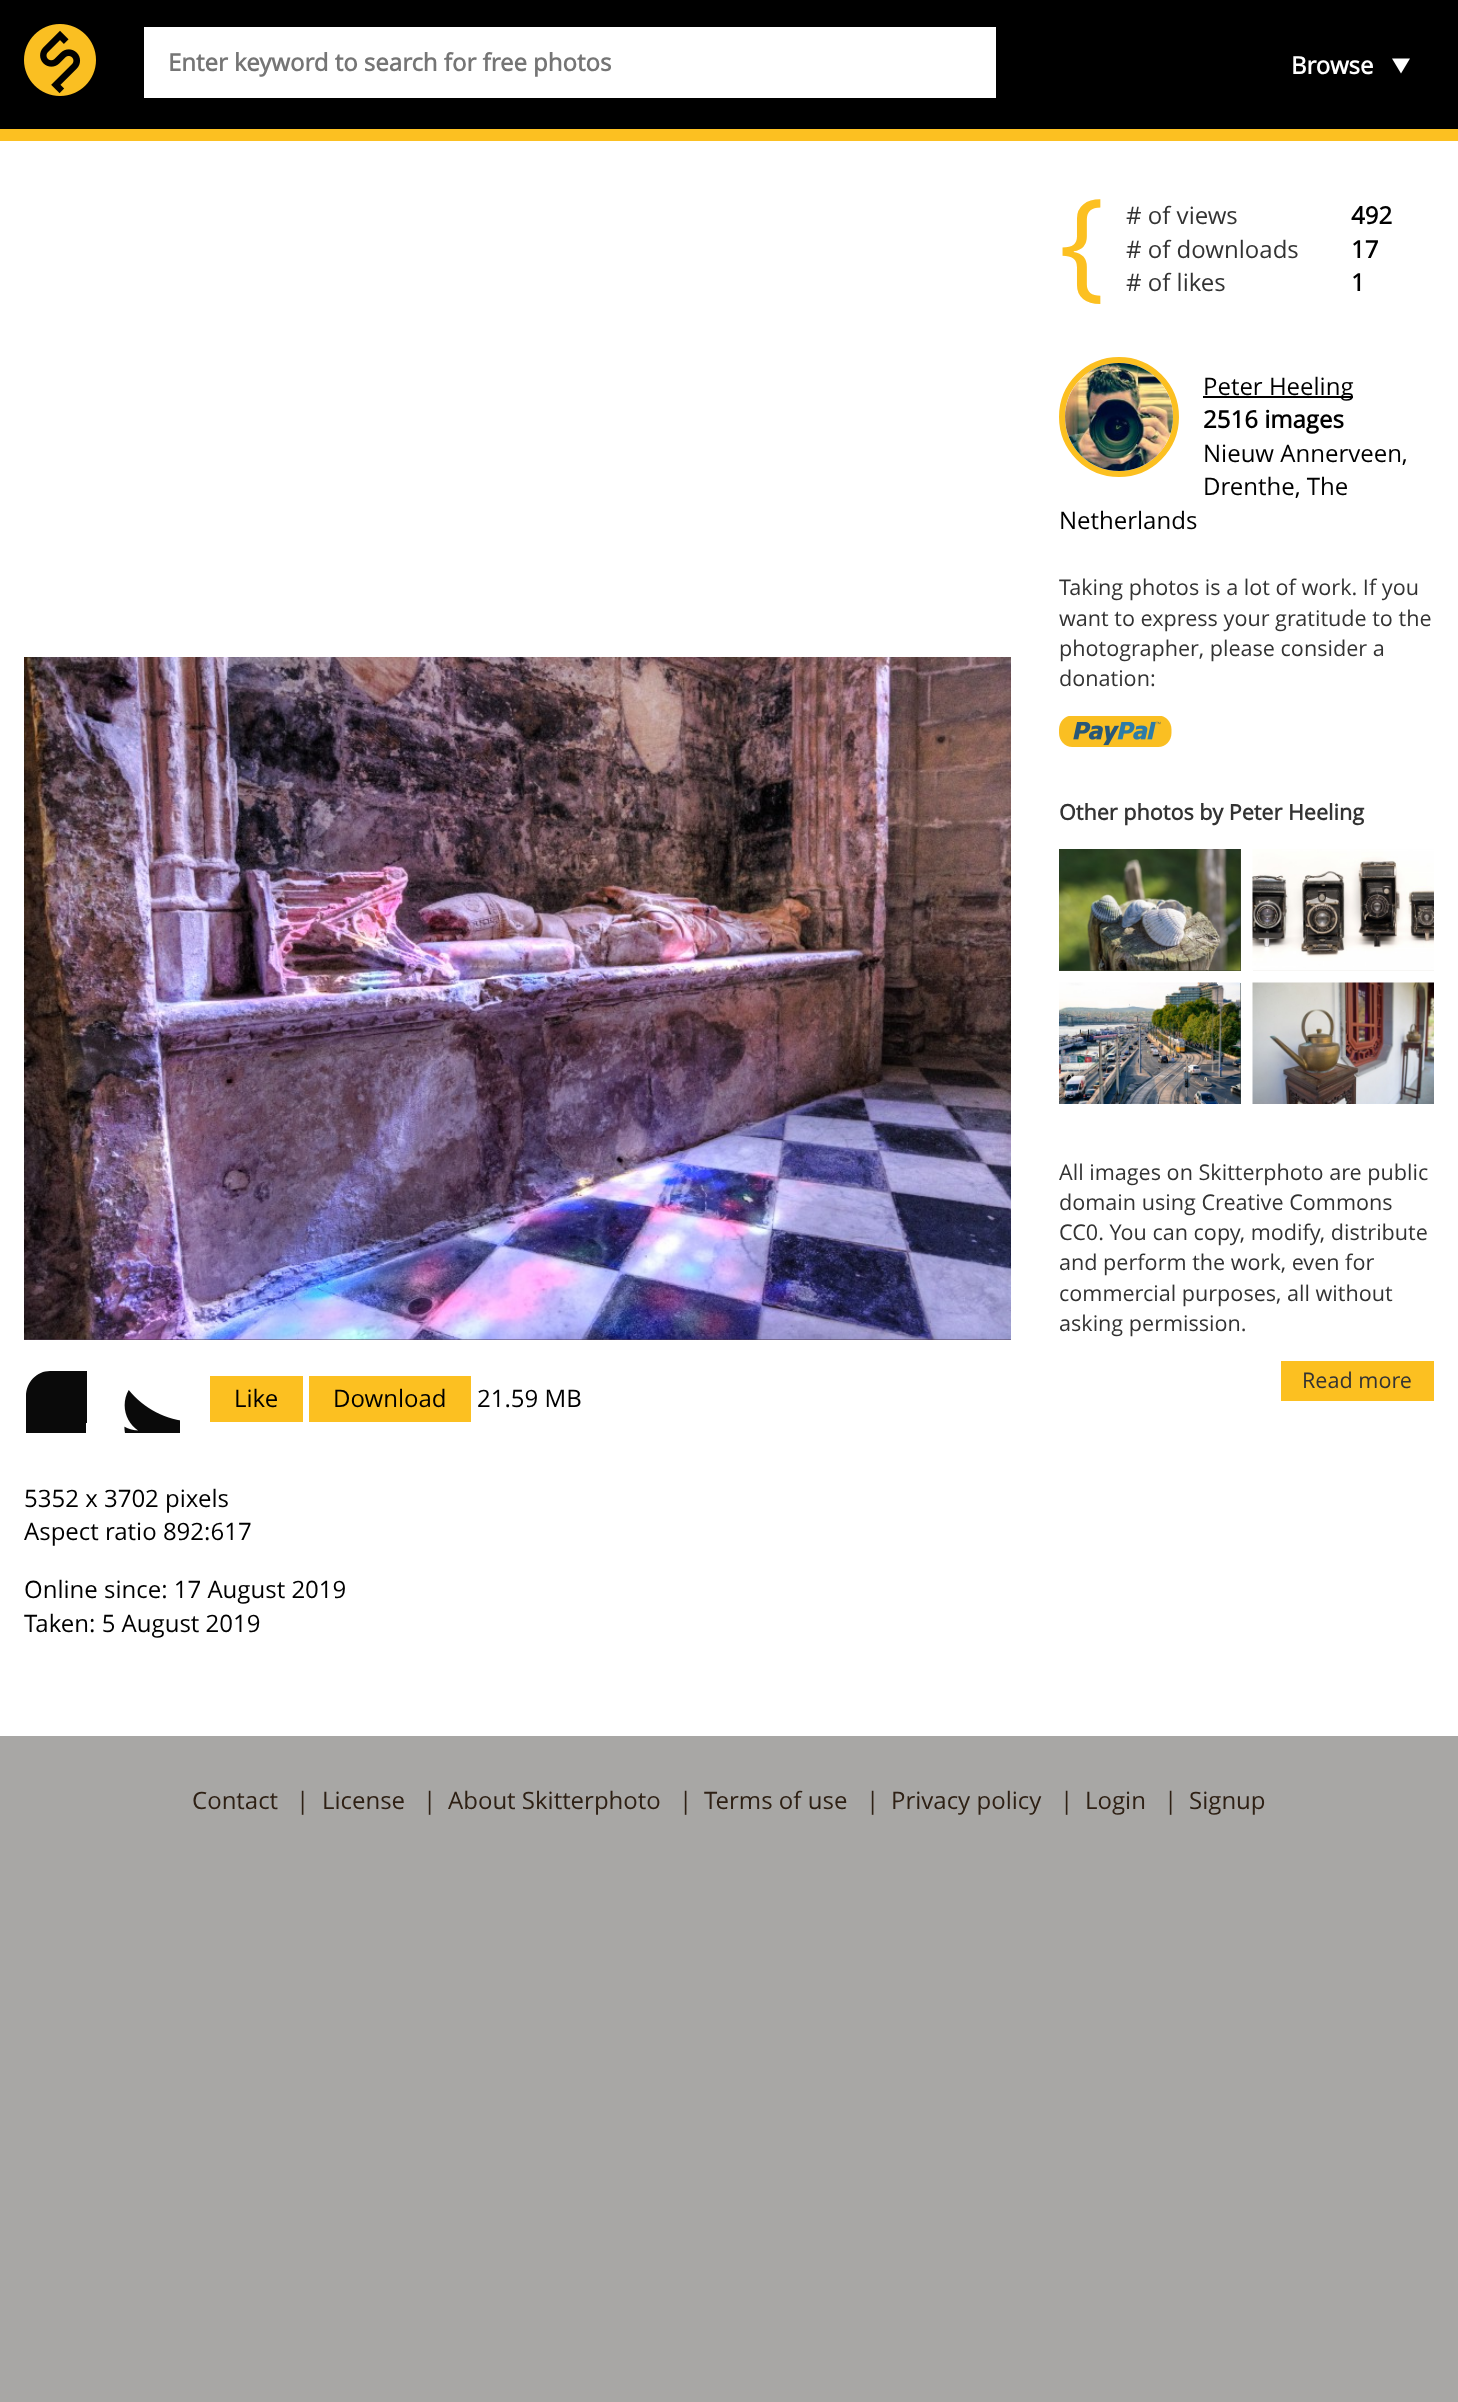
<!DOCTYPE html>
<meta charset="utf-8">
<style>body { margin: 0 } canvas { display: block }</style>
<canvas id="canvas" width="1458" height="2402"></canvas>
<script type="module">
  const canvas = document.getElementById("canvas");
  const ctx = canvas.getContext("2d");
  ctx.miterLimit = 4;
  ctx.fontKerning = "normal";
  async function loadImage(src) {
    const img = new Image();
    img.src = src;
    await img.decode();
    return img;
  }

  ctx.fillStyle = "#a8a7a5";
  ctx.fillRect(0, 0, 1458, 2402);
  ctx.fillStyle = "#000000";
  ctx.fillRect(0, 0, 1458, 129);
  ctx.fillStyle = "#fcc021";
  ctx.fillRect(0, 129, 1458, 12);
  ctx.drawImage(await loadImage("img1.png"), 24, 24, 72, 72);
  ctx.fillStyle = "#ffffff";
  ctx.fillRect(144, 27, 852, 71);
  ctx.font = "bold 24px Open Sans";
  ctx.fillStyle = "#757575";
  ctx.fillText("Enter keyword to search for free photos", 168, 71);
  ctx.fillStyle = "#ffffff";
  ctx.fillText("Browse", 1291, 74);
  ctx.beginPath();
  ctx.moveTo(1392, 58.5);
  ctx.lineTo(1410, 58.5);
  ctx.lineTo(1401, 73.5);
  ctx.closePath();
  ctx.fill();
  ctx.fillRect(0, 141, 1458, 1595);
  ctx.font = "120px Open Sans";
  ctx.fillStyle = "#fcc021";
  ctx.fillText("{", 1059, 285);
  ctx.font = "24px Open Sans";
  ctx.fillStyle = "#333333";
  ctx.fillText("# of views", 1126, 224);
  ctx.font = "bold 24px Open Sans";
  ctx.fillStyle = "#000000";
  ctx.fillText("492", 1351, 224);
  ctx.font = "24px Open Sans";
  ctx.fillStyle = "#333333";
  ctx.fillText("# of downloads", 1126, 258);
  ctx.font = "bold 24px Open Sans";
  ctx.fillStyle = "#000000";
  ctx.fillText("17", 1351, 258);
  ctx.font = "24px Open Sans";
  ctx.fillStyle = "#333333";
  ctx.fillText("# of likes", 1126, 291);
  ctx.font = "bold 24px Open Sans";
  ctx.fillStyle = "#000000";
  ctx.fillText("1", 1351, 291);
  ctx.beginPath();
  ctx.arc(1119, 417, 57, 0, Math.PI * 2);
  ctx.strokeStyle = "#fcc021";
  ctx.lineWidth = 6;
  ctx.stroke();
  ctx.drawImage(await loadImage("img2.png"), 1065, 363, 108, 108);
  ctx.fillRect(1203, 396, 150, 2);
  ctx.font = "24px Open Sans";
  ctx.fillText("Peter Heeling", 1203, 395);
  ctx.font = "bold 24px Open Sans";
  ctx.fillText("2516 images", 1203, 428);
  ctx.font = "24px Open Sans";
  ctx.fillText("Nieuw Annerveen,", 1203, 462);
  ctx.fillText("Drenthe, The", 1203, 495);
  ctx.fillText("Netherlands", 1059, 529);
  ctx.font = "21.6px Open Sans";
  ctx.fillStyle = "#333333";
  ctx.fillText("Taking photos is a lot of work. If you", 1059, 595);
  ctx.fillText("want to express your gratitude to the", 1059, 626);
  ctx.fillText("photographer, please consider a", 1059, 656);
  ctx.fillText("donation:", 1059, 686);
  ctx.drawImage(await loadImage("img3.png"), 1059, 716, 113, 31);
  ctx.font = "bold 21.6px Open Sans";
  ctx.fillText("Other photos by Peter Heeling", 1059, 820);
  ctx.fillStyle = "#3f4931";
  ctx.fillRect(1059, 849, 182, 122);
  ctx.drawImage(await loadImage("img4.png"), 1059, 849, 182, 122);
  ctx.fillStyle = "#efede9";
  ctx.fillRect(1253, 970, 181, 1);
  ctx.drawImage(await loadImage("img5.png"), 1252, 849, 182, 122);
  ctx.fillStyle = "#384646";
  ctx.fillRect(1240, 983, 1, 121);
  ctx.drawImage(await loadImage("img6.png"), 1059, 982, 182, 122);
  ctx.drawImage(await loadImage("img7.png"), 1252, 982, 182, 122);
  ctx.font = "21.6px Open Sans";
  ctx.fillStyle = "#333333";
  ctx.fillText("All images on Skitterphoto are public", 1059, 1180);
  ctx.fillText("domain using Creative Commons", 1059, 1210);
  ctx.fillText("CC0. You can copy, modify, distribute", 1059, 1240);
  ctx.fillText("and perform the work, even for", 1059, 1270);
  ctx.fillText("commercial purposes, all without", 1059, 1301);
  ctx.fillText("asking permission.", 1059, 1331);
  ctx.fillStyle = "#fcc021";
  ctx.fillRect(1281, 1361, 153, 40);
  ctx.fillStyle = "#333333";
  ctx.fillText("Read more", 1302, 1388);
  ctx.fillStyle = "#523e50";
  ctx.fillRect(24, 1339, 987, 1);
  ctx.drawImage(await loadImage("img8.png"), 24, 657, 987, 683);
  ctx.save();
  ctx.beginPath();
  ctx.rect(24, 1370, 63, 63);
  ctx.clip();
  ctx.fillStyle = "#0a0a0a";
  ctx.beginPath();
  ctx.moveTo(148, 1371);
  ctx.lineTo(50, 1371);
  ctx.bezierCurveTo(37, 1371, 26, 1382, 26, 1396);
  ctx.lineTo(26, 1493);
  ctx.bezierCurveTo(26, 1507, 37, 1518, 50, 1518);
  ctx.lineTo(148, 1518);
  ctx.bezierCurveTo(161, 1518, 172, 1507, 172, 1493);
  ctx.lineTo(172, 1396);
  ctx.bezierCurveTo(172, 1382, 161, 1371, 148, 1371);
  ctx.closePath();
  ctx.moveTo(150, 1444);
  ctx.lineTo(127, 1444);
  ctx.lineTo(127, 1509);
  ctx.lineTo(99, 1509);
  ctx.lineTo(99, 1444);
  ctx.lineTo(86, 1444);
  ctx.lineTo(86, 1423);
  ctx.lineTo(99, 1423);
  ctx.lineTo(99, 1410);
  ctx.bezierCurveTo(99, 1391, 107, 1380, 129, 1380);
  ctx.lineTo(154, 1380);
  ctx.lineTo(154, 1403);
  ctx.lineTo(133, 1403);
  ctx.bezierCurveTo(127, 1403, 127, 1406, 127, 1412);
  ctx.lineTo(127, 1423);
  ctx.lineTo(154, 1423);
  ctx.closePath();
  ctx.fill();
  ctx.restore();
  ctx.drawImage(await loadImage("img9.png"), 124, 1390, 56, 43);
  ctx.fillStyle = "#fcc021";
  ctx.fillRect(210, 1376, 93, 46);
  ctx.font = "24px Open Sans";
  ctx.fillStyle = "#000000";
  ctx.fillText("Like", 234, 1407);
  ctx.fillStyle = "#fcc021";
  ctx.fillRect(309, 1376, 162, 46);
  ctx.fillStyle = "#000000";
  ctx.fillText("Download", 333, 1407);
  ctx.fillText("21.59 MB", 477, 1407);
  ctx.fillText("5352 x 3702 pixels", 24, 1507);
  ctx.fillText("Aspect ratio 892:617", 24, 1540);
  ctx.fillText("Online since: 17 August 2019", 24, 1598);
  ctx.fillText("Taken: 5 August 2019", 24, 1632);
  ctx.fillStyle = "#2e2014";
  ctx.fillText("Contact", 192, 1809);
  ctx.fillText("|", 296, 1809);
  ctx.fillText("License", 322, 1809);
  ctx.fillText("|", 423, 1809);
  ctx.fillText("About Skitterphoto", 448, 1809);
  ctx.fillText("|", 679, 1809);
  ctx.fillText("Terms of use", 704, 1809);
  ctx.fillText("|", 866, 1809);
  ctx.fillText("Privacy policy", 891, 1809);
  ctx.fillText("|", 1060, 1809);
  ctx.fillText("Login", 1085, 1809);
  ctx.fillText("|", 1164, 1809);
  ctx.fillText("Signup", 1189, 1809);
</script>
